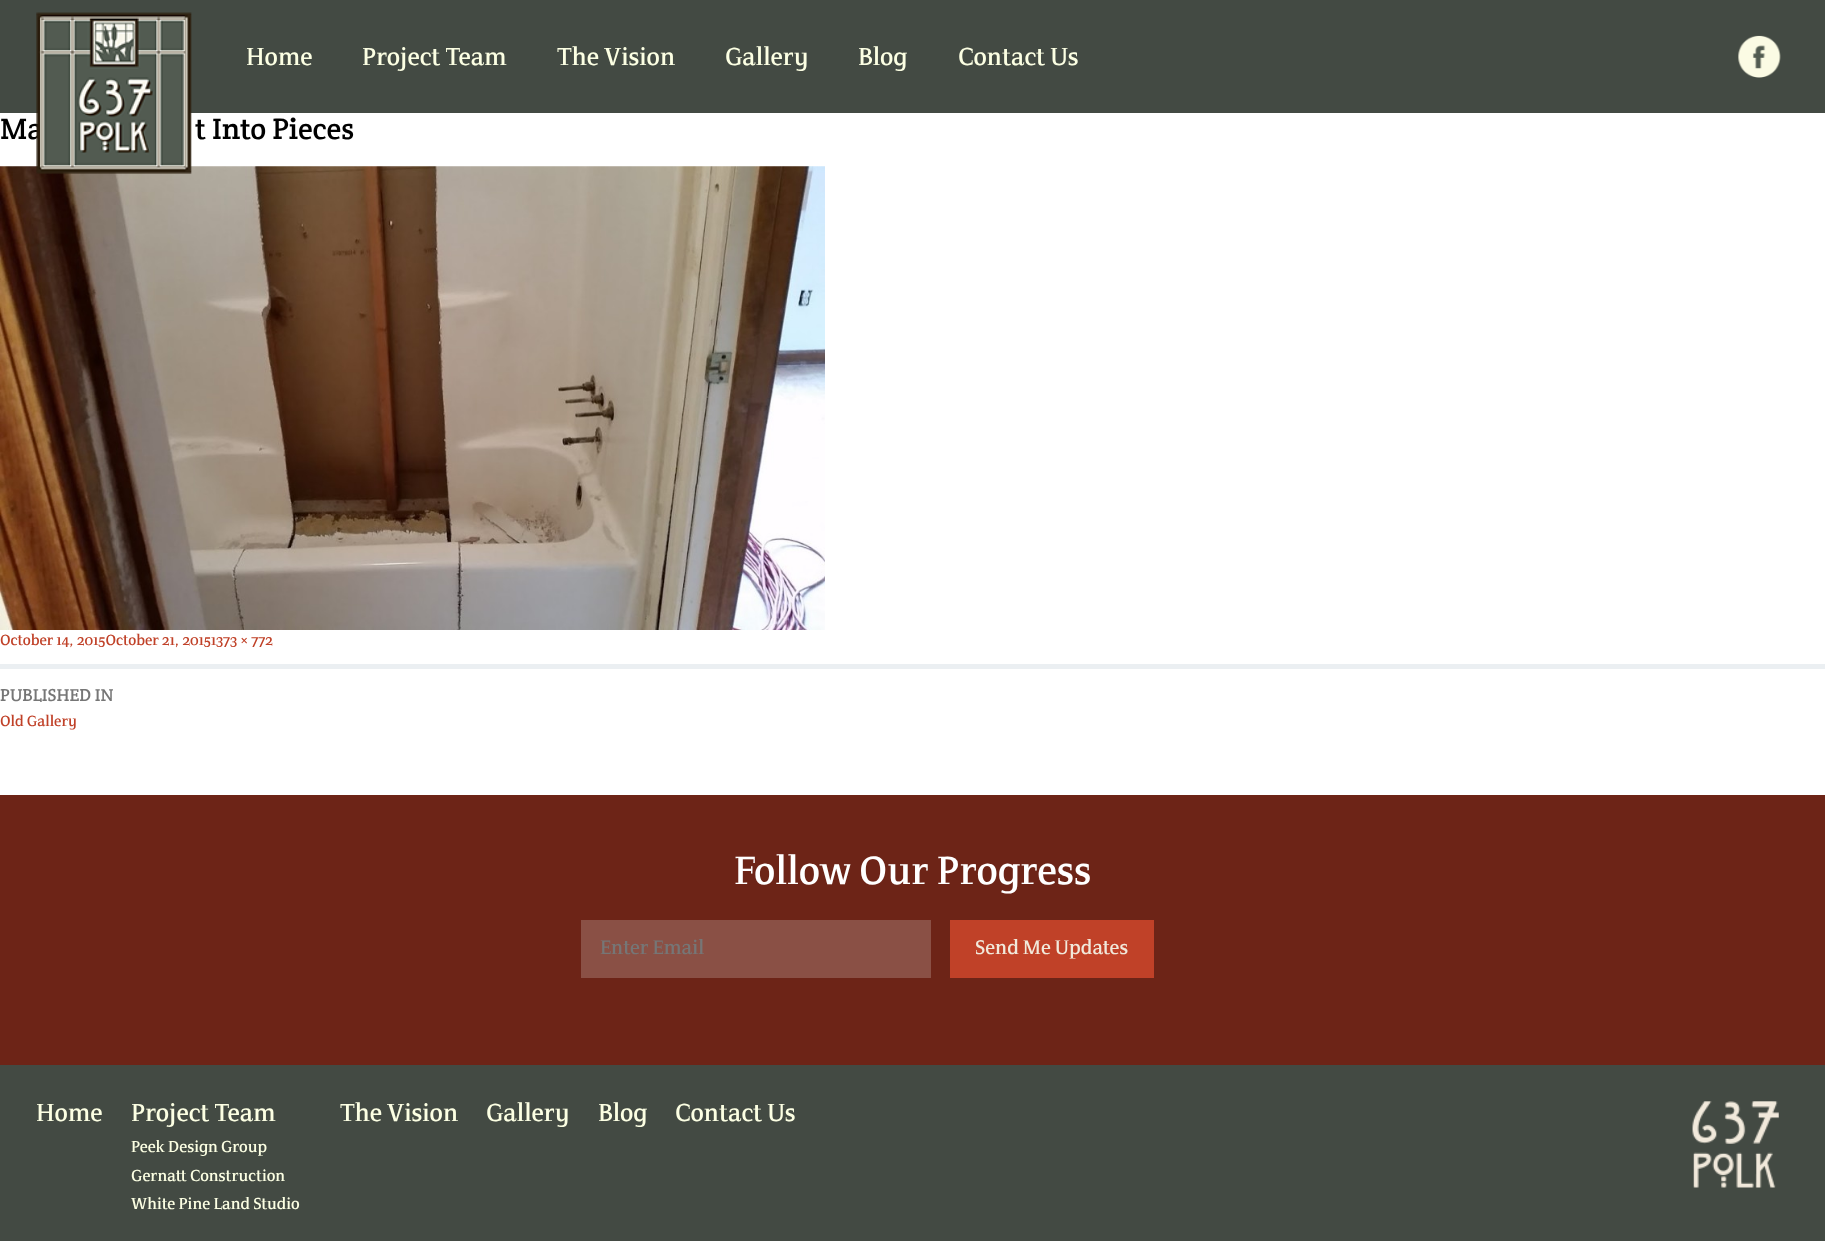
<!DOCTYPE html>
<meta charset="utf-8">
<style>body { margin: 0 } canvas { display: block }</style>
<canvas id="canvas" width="1825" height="1241"></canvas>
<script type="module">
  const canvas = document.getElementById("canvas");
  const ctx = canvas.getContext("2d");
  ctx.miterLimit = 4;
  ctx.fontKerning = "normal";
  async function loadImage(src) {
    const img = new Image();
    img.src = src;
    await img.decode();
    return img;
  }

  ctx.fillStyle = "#ffffff";
  ctx.fillRect(0, 0, 1825, 1241);
  ctx.fillStyle = "#434a43";
  ctx.fillRect(0, 0, 1825, 113);
  ctx.font = "bold 30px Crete";
  ctx.fillStyle = "#000000";
  ctx.fillText("Ma", 0, 139);
  ctx.drawImage(await loadImage("img3.png"), 0, 166, 825, 464);
  ctx.drawImage(await loadImage("img1.png"), 36, 12, 156, 162);
  ctx.font = "100 25px Crete";
  ctx.fillStyle = "#fcffe3";
  ctx.fillText("Home", 246, 65);
  ctx.fillText("Project Team", 362, 65);
  ctx.fillText("The Vision", 557, 65);
  ctx.fillText("Gallery", 725, 65);
  ctx.fillText("Blog", 858, 65);
  ctx.fillText("Contact Us", 958, 65);
  ctx.drawImage(await loadImage("img2.png"), 1738, 35, 43, 43);
  ctx.font = "bold 30px Crete";
  ctx.fillStyle = "#000000";
  ctx.fillText("t Into Pieces", 195, 139);
  ctx.font = "100 15px Crete";
  ctx.fillStyle = "#c04128";
  ctx.fillText("October 14, 2015October 21, 20151373 × 772", 0, 645);
  ctx.fillStyle = "#ebeff2";
  ctx.fillRect(0, 664, 1825, 5);
  ctx.font = "bold 17.5px Crete";
  ctx.fillStyle = "#767676";
  ctx.fillText("PUBLISHED IN", 0, 701);
  ctx.font = "100 15px Crete";
  ctx.fillStyle = "#c04128";
  ctx.fillText("Old Gallery", 0, 726);
  ctx.fillStyle = "#6d2417";
  ctx.fillRect(0, 795, 1825, 270);
  ctx.font = "100 40px Crete";
  ctx.fillStyle = "#ffffff";
  ctx.fillText("Follow Our Progress", 734, 884);
  ctx.fillStyle = "#8a5045";
  ctx.fillRect(581, 920, 350, 58);
  ctx.font = "100 20px Crete";
  ctx.fillStyle = "#767676";
  ctx.fillText("Enter Email", 600, 954);
  ctx.fillStyle = "#c04128";
  ctx.fillRect(950, 920, 204, 58);
  ctx.fillStyle = "#f1e9db";
  ctx.fillText("Send Me Updates", 975, 954);
  ctx.fillStyle = "#434a43";
  ctx.fillRect(0, 1065, 1825, 176);
  ctx.font = "100 25px Crete";
  ctx.fillStyle = "#fcffe3";
  ctx.fillText("Home", 36, 1121);
  ctx.fillText("Project Team", 131, 1121);
  ctx.font = "100 16.25px Crete";
  ctx.fillText("Peek Design Group", 131, 1152);
  ctx.fillText("Gernatt Construction", 131, 1181);
  ctx.fillText("White Pine Land Studio", 131, 1209);
  ctx.font = "100 25px Crete";
  ctx.fillText("The Vision", 340, 1121);
  ctx.fillText("Gallery", 486, 1121);
  ctx.fillText("Blog", 598, 1121);
  ctx.fillText("Contact Us", 675, 1121);
  ctx.drawImage(await loadImage("img4.png"), 1692, 1101, 87, 87);
</script>
